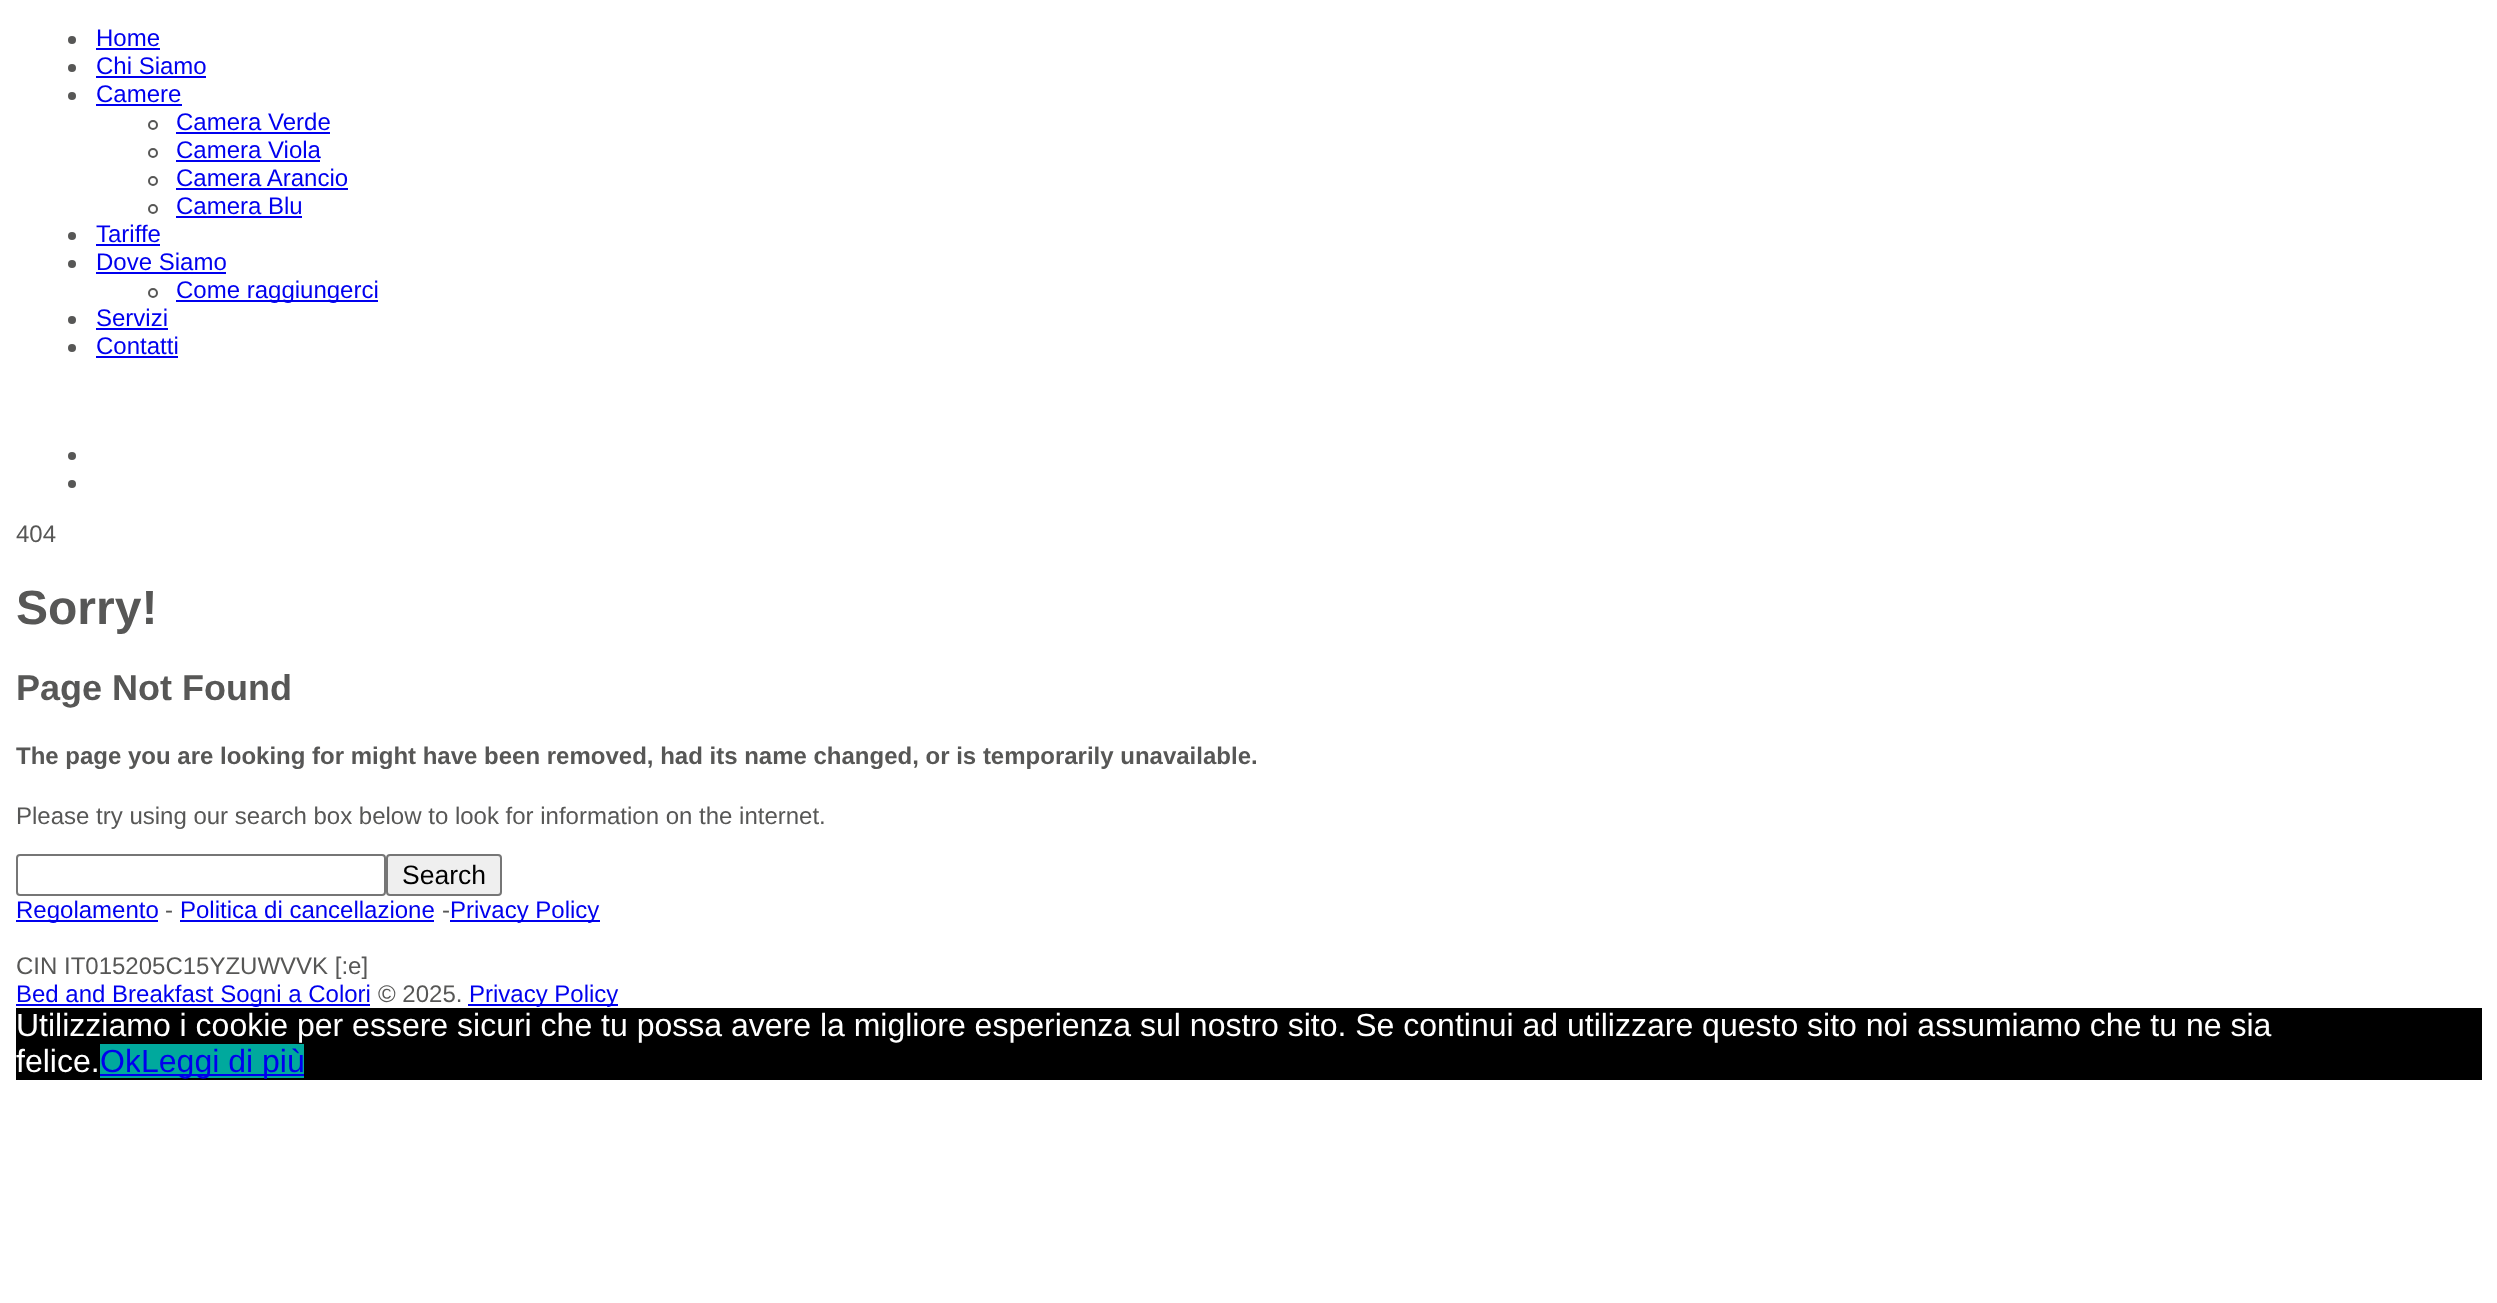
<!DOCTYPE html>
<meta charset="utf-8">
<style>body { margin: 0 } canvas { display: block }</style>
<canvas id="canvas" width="2497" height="1303"></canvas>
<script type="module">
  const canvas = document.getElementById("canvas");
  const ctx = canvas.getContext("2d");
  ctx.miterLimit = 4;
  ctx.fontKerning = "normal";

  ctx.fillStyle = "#ffffff";
  ctx.fillRect(0, 0, 2497, 1303);
  ctx.fillStyle = "#575756";
  ctx.beginPath();
  ctx.arc(72, 40, 4, 0, Math.PI * 2);
  ctx.fill();
  ctx.font = "24px Liberation Sans";
  ctx.fillStyle = "#0000ee";
  ctx.fillText("Home", 96, 46);
  ctx.fillRect(96, 48, 64, 2);
  ctx.fillStyle = "#575756";
  ctx.beginPath();
  ctx.arc(72, 68, 4, 0, Math.PI * 2);
  ctx.fill();
  ctx.fillStyle = "#0000ee";
  ctx.fillText("Chi Siamo", 96, 74);
  ctx.fillRect(96, 76, 110, 2);
  ctx.fillStyle = "#575756";
  ctx.beginPath();
  ctx.arc(72, 96, 4, 0, Math.PI * 2);
  ctx.fill();
  ctx.fillStyle = "#0000ee";
  ctx.fillText("Camere", 96, 102);
  ctx.fillRect(96, 104, 86, 2);
  ctx.beginPath();
  ctx.arc(153, 125, 4, 0, Math.PI * 2);
  ctx.strokeStyle = "#575756";
  ctx.lineWidth = 2;
  ctx.stroke();
  ctx.fillText("Camera Verde", 176, 130);
  ctx.fillRect(176, 132, 154, 2);
  ctx.beginPath();
  ctx.arc(153, 153, 4, 0, Math.PI * 2);
  ctx.stroke();
  ctx.fillText("Camera Viola", 176, 158);
  ctx.fillRect(176, 160, 144, 2);
  ctx.beginPath();
  ctx.arc(153, 181, 4, 0, Math.PI * 2);
  ctx.stroke();
  ctx.fillText("Camera Arancio", 176, 186);
  ctx.fillRect(176, 188, 172, 2);
  ctx.beginPath();
  ctx.arc(153, 209, 4, 0, Math.PI * 2);
  ctx.stroke();
  ctx.fillText("Camera Blu", 176, 214);
  ctx.fillRect(176, 216, 126, 2);
  ctx.fillStyle = "#575756";
  ctx.beginPath();
  ctx.arc(72, 236, 4, 0, Math.PI * 2);
  ctx.fill();
  ctx.fillStyle = "#0000ee";
  ctx.fillText("Tariffe", 96, 242);
  ctx.fillRect(96, 244, 64, 2);
  ctx.fillStyle = "#575756";
  ctx.beginPath();
  ctx.arc(72, 264, 4, 0, Math.PI * 2);
  ctx.fill();
  ctx.fillStyle = "#0000ee";
  ctx.fillText("Dove Siamo", 96, 270);
  ctx.fillRect(96, 272, 130, 2);
  ctx.beginPath();
  ctx.arc(153, 293, 4, 0, Math.PI * 2);
  ctx.stroke();
  ctx.fillRect(176, 300, 202, 2);
  ctx.fillText("Come raggiungerci", 176, 298);
  ctx.fillStyle = "#575756";
  ctx.beginPath();
  ctx.arc(72, 320, 4, 0, Math.PI * 2);
  ctx.fill();
  ctx.fillStyle = "#0000ee";
  ctx.fillText("Servizi", 96, 326);
  ctx.fillRect(96, 328, 72, 2);
  ctx.fillStyle = "#575756";
  ctx.beginPath();
  ctx.arc(72, 348, 4, 0, Math.PI * 2);
  ctx.fill();
  ctx.fillStyle = "#0000ee";
  ctx.fillText("Contatti", 96, 354);
  ctx.fillRect(96, 356, 82, 2);
  ctx.fillStyle = "#575756";
  ctx.beginPath();
  ctx.arc(72, 456, 4, 0, Math.PI * 2);
  ctx.fill();
  ctx.beginPath();
  ctx.arc(72, 484, 4, 0, Math.PI * 2);
  ctx.fill();
  ctx.fillText("404", 16, 542);
  ctx.font = "bold 48px Liberation Sans";
  ctx.fillText("Sorry!", 16, 624);
  ctx.font = "bold 36px Liberation Sans";
  ctx.fillText("Page Not Found", 16, 700);
  ctx.font = "bold 24px Liberation Sans";
  ctx.fillText("The page you are looking for might have been removed, had its name changed, or is temporarily unavailable.", 16, 764);
  ctx.font = "24px Liberation Sans";
  ctx.fillText("Please try using our search box below to look for information on the internet.", 16, 824);
  ctx.beginPath();
  ctx.roundRect(17, 855, 368, 40, 3);
  ctx.strokeStyle = "#767676";
  ctx.stroke();
  ctx.fillStyle = "#efefef";
  ctx.beginPath();
  ctx.roundRect(387, 855, 114, 40, 3);
  ctx.fill();
  ctx.stroke();
  ctx.font = "26.5px Liberation Sans";
  ctx.fillStyle = "#000000";
  ctx.fillText("Search", 402, 884);
  ctx.fillStyle = "#0000ee";
  ctx.fillRect(16, 920, 142, 2);
  ctx.font = "24px Liberation Sans";
  ctx.fillText("Regolamento", 16, 918);
  ctx.fillStyle = "#575756";
  ctx.fillText("-", 165, 918);
  ctx.fillStyle = "#0000ee";
  ctx.fillText("Politica di cancellazione", 180, 918);
  ctx.fillRect(180, 920, 254, 2);
  ctx.fillStyle = "#575756";
  ctx.fillText("-", 442, 918);
  ctx.fillStyle = "#0000ee";
  ctx.fillRect(450, 920, 150, 2);
  ctx.fillText("Privacy Policy", 450, 918);
  ctx.fillStyle = "#575756";
  ctx.fillText("CIN IT015205C15YZUWVVK [:e]", 16, 974);
  ctx.fillStyle = "#0000ee";
  ctx.fillRect(16, 1004, 354, 2);
  ctx.fillText("Bed and Breakfast Sogni a Colori", 16, 1002);
  ctx.fillStyle = "#575756";
  ctx.fillText("© 2025.", 378, 1002);
  ctx.fillStyle = "#0000ee";
  ctx.fillRect(468, 1004, 150, 2);
  ctx.fillText("Privacy Policy", 469, 1002);
  ctx.fillStyle = "#000000";
  ctx.fillRect(16, 1008, 2466, 72);
  ctx.font = "32px Liberation Sans";
  ctx.fillStyle = "#ffffff";
  ctx.fillText("Utilizziamo i cookie per essere sicuri che tu possa avere la migliore esperienza sul nostro sito. Se continui ad utilizzare questo sito noi assumiamo che tu ne sia", 16, 1036);
  ctx.fillText("felice.", 16, 1072);
  ctx.fillStyle = "#00a99d";
  ctx.fillRect(100, 1044, 40, 34);
  ctx.fillStyle = "#0000ee";
  ctx.fillText("Ok", 100, 1072);
  ctx.fillStyle = "#00a99d";
  ctx.fillRect(140, 1044, 164, 34);
  ctx.fillStyle = "#0000ee";
  ctx.fillRect(140, 1074, 164, 2);
  ctx.fillText("Leggi di più", 141, 1072);
  ctx.fillRect(100, 1074, 40, 2);
</script>
